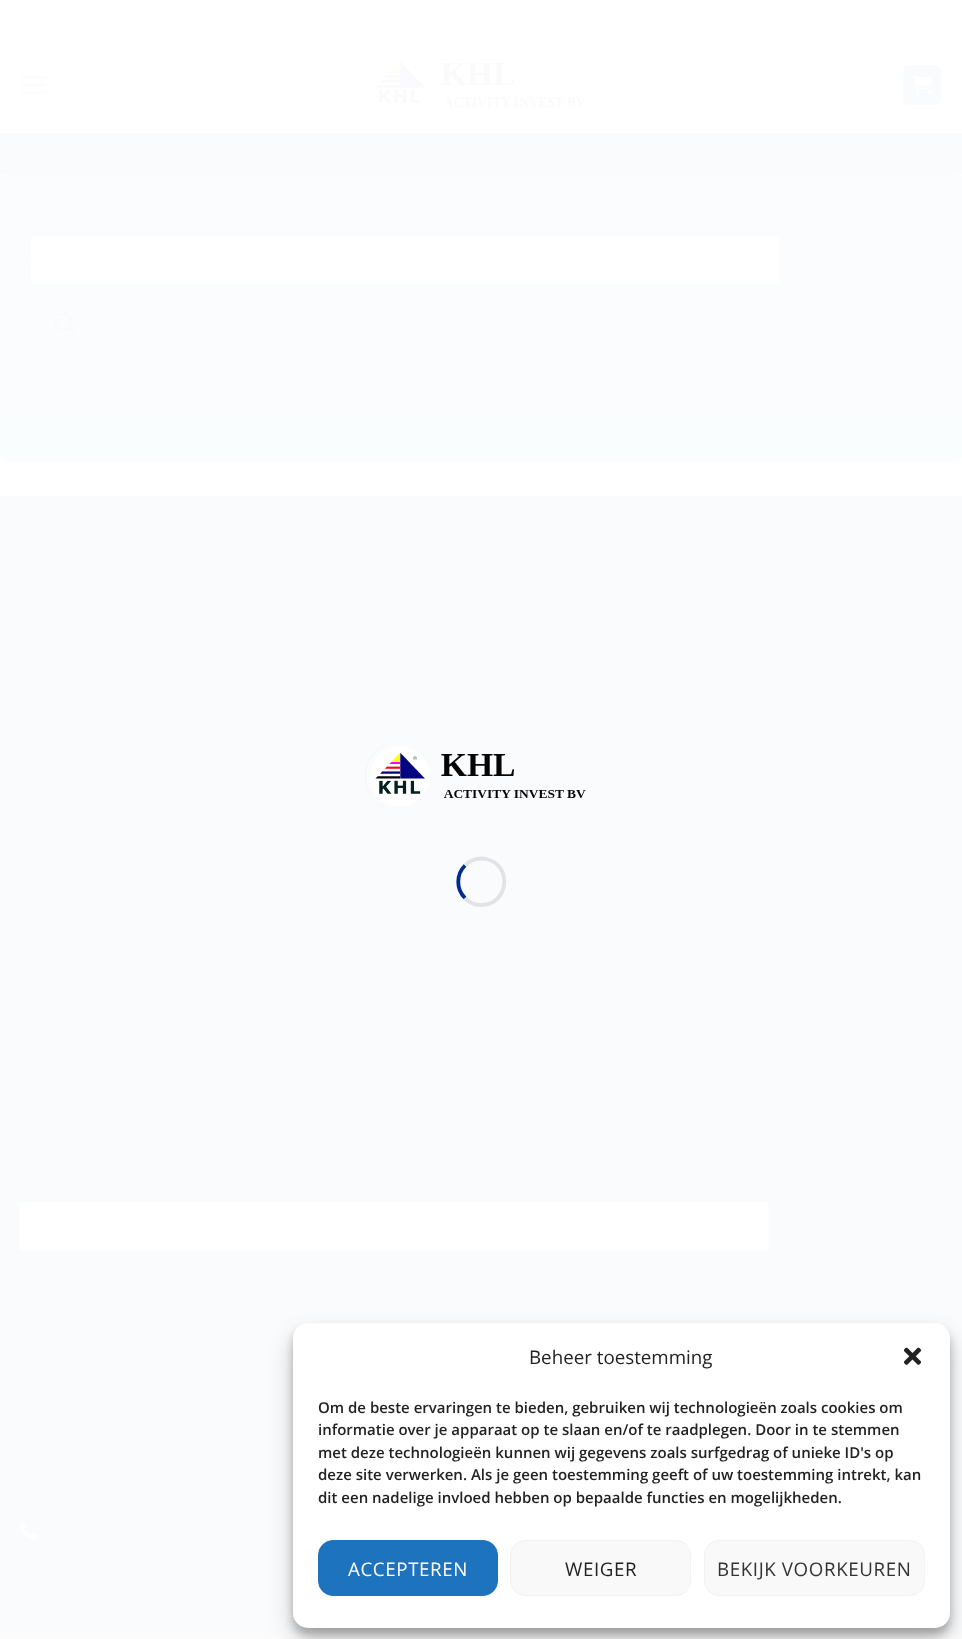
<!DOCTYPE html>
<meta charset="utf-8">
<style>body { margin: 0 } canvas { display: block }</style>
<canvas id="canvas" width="962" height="1639"></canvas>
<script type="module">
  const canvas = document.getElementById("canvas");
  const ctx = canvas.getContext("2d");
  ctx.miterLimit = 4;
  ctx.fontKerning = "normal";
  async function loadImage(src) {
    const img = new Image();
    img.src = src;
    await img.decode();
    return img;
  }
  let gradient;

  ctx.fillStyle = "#ffffff";
  ctx.fillRect(0, 0, 962, 1639);
  ctx.drawImage(await loadImage("img1.png"), 21, 76, 26, 18);
  ctx.drawImage(await loadImage("img2.png"), 364, 52, 222, 68);
  ctx.fillStyle = "#fafbfd";
  ctx.beginPath();
  ctx.roundRect(903, 65, 38, 40, 6);
  ctx.fill();
  ctx.drawImage(await loadImage("img3.png"), 912, 75, 20, 19);
  ctx.fillRect(0, 133, 962, 41);
  gradient = ctx.createLinearGradient(481, 174, 481, 461);
  gradient.addColorStop(0.28, "rgba(250, 252, 253, 0.97)");
  gradient.addColorStop(1, "rgba(250, 253, 255, 0.88)");
  ctx.fillStyle = gradient;
  ctx.beginPath();
  ctx.roundRect(0, 174, 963, 287, 6);
  ctx.fill();
  ctx.fillStyle = "#ffffff";
  ctx.fillRect(31, 236, 748, 48);
  ctx.drawImage(await loadImage("img4.png"), 54, 313, 22, 22);
  ctx.fillStyle = "#fafbfd";
  ctx.fillRect(0, 496, 962, 1137);
  ctx.fillStyle = "#ffffff";
  ctx.beginPath();
  ctx.rect(19.5, 1201.5, 749, 49);
  ctx.fill();
  ctx.strokeStyle = "#fafefe";
  ctx.stroke();
  ctx.drawImage(await loadImage("img5.png"), 43, 1279, 22, 22);
  ctx.drawImage(await loadImage("img6.png"), 19, 1521, 19, 19);
  ctx.fillStyle = "#fcfcfc";
  ctx.fillRect(0, 1633, 962, 6);
  ctx.drawImage(await loadImage("img7.png"), 365, 745, 221, 64);
  ctx.beginPath();
  ctx.moveTo(465, 865.5);
  ctx.bezierCurveTo(470.5, 860, 478.5, 857.5, 486, 859);
  ctx.bezierCurveTo(513, 864.5, 509, 905, 481, 905);
  ctx.bezierCurveTo(475, 905, 469, 902.5, 465, 898);
  ctx.strokeStyle = "#e1e3e7";
  ctx.lineWidth = 3.8;
  ctx.stroke();
  ctx.beginPath();
  ctx.moveTo(465, 898);
  ctx.bezierCurveTo(456, 889, 456, 874.5, 465, 865.5);
  ctx.strokeStyle = "#002c8f";
  ctx.stroke();
  ctx.fillStyle = "rgba(0, 0, 0, 0.23)";
  ctx.filter = "blur(4px)";
  ctx.beginPath();
  ctx.roundRect(293, 1330, 657, 305, 15);
  ctx.fill();
  ctx.filter = "none";
  ctx.fillStyle = "rgba(0, 0, 0, 0.19)";
  ctx.filter = "blur(12.5px)";
  ctx.beginPath();
  ctx.roundRect(293, 1335, 657, 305, 15);
  ctx.fill();
  ctx.filter = "none";
  ctx.fillStyle = "#ffffff";
  ctx.beginPath();
  ctx.roundRect(293, 1323, 657, 305, 15);
  ctx.fill();
  ctx.font = "18.75px Open Sans";
  ctx.fillStyle = "#222222";
  ctx.fillText("Beheer toestemming", 529, 1364);
  ctx.drawImage(await loadImage("img8.png"), 903, 1347, 19, 18);
  ctx.font = "600 15px Open Sans";
  ctx.fillText("Om de beste ervaringen te bieden, gebruiken wij technologieën zoals cookies om", 318, 1413);
  ctx.fillText("informatie over je apparaat op te slaan en/of te raadplegen. Door in te stemmen", 318, 1435);
  ctx.fillText("met deze technologieën kunnen wij gegevens zoals surfgedrag of unieke ID's op", 318, 1458);
  ctx.fillText("deze site verwerken. Als je geen toestemming geeft of uw toestemming intrekt, kan", 318, 1480);
  ctx.fillText("dit een nadelige invloed hebben op bepaalde functies en mogelijkheden.", 318, 1503);
  ctx.fillStyle = "#1e73be";
  ctx.beginPath();
  ctx.roundRect(318.5, 1540.5, 179, 55, 14.5);
  ctx.fill();
  ctx.strokeStyle = "#1e73be";
  ctx.lineWidth = 1;
  ctx.stroke();
  ctx.letterSpacing = "0.6px";
  ctx.font = "18.75px Open Sans";
  ctx.fillStyle = "#ffffff";
  ctx.fillText("ACCEPTEREN", 348, 1576);
  ctx.fillStyle = "#f9f9f9";
  ctx.beginPath();
  ctx.roundRect(510.5, 1540.5, 180, 55, 14.5);
  ctx.fill();
  ctx.strokeStyle = "#f2f2f2";
  ctx.stroke();
  ctx.fillStyle = "#222222";
  ctx.fillText("WEIGER", 565, 1576);
  ctx.fillStyle = "#f9f9f9";
  ctx.beginPath();
  ctx.roundRect(704.5, 1540.5, 220, 55, 14.5);
  ctx.fill();
  ctx.stroke();
  ctx.fillStyle = "#333333";
  ctx.fillText("BEKIJK VOORKEUREN", 717, 1576);
</script>
